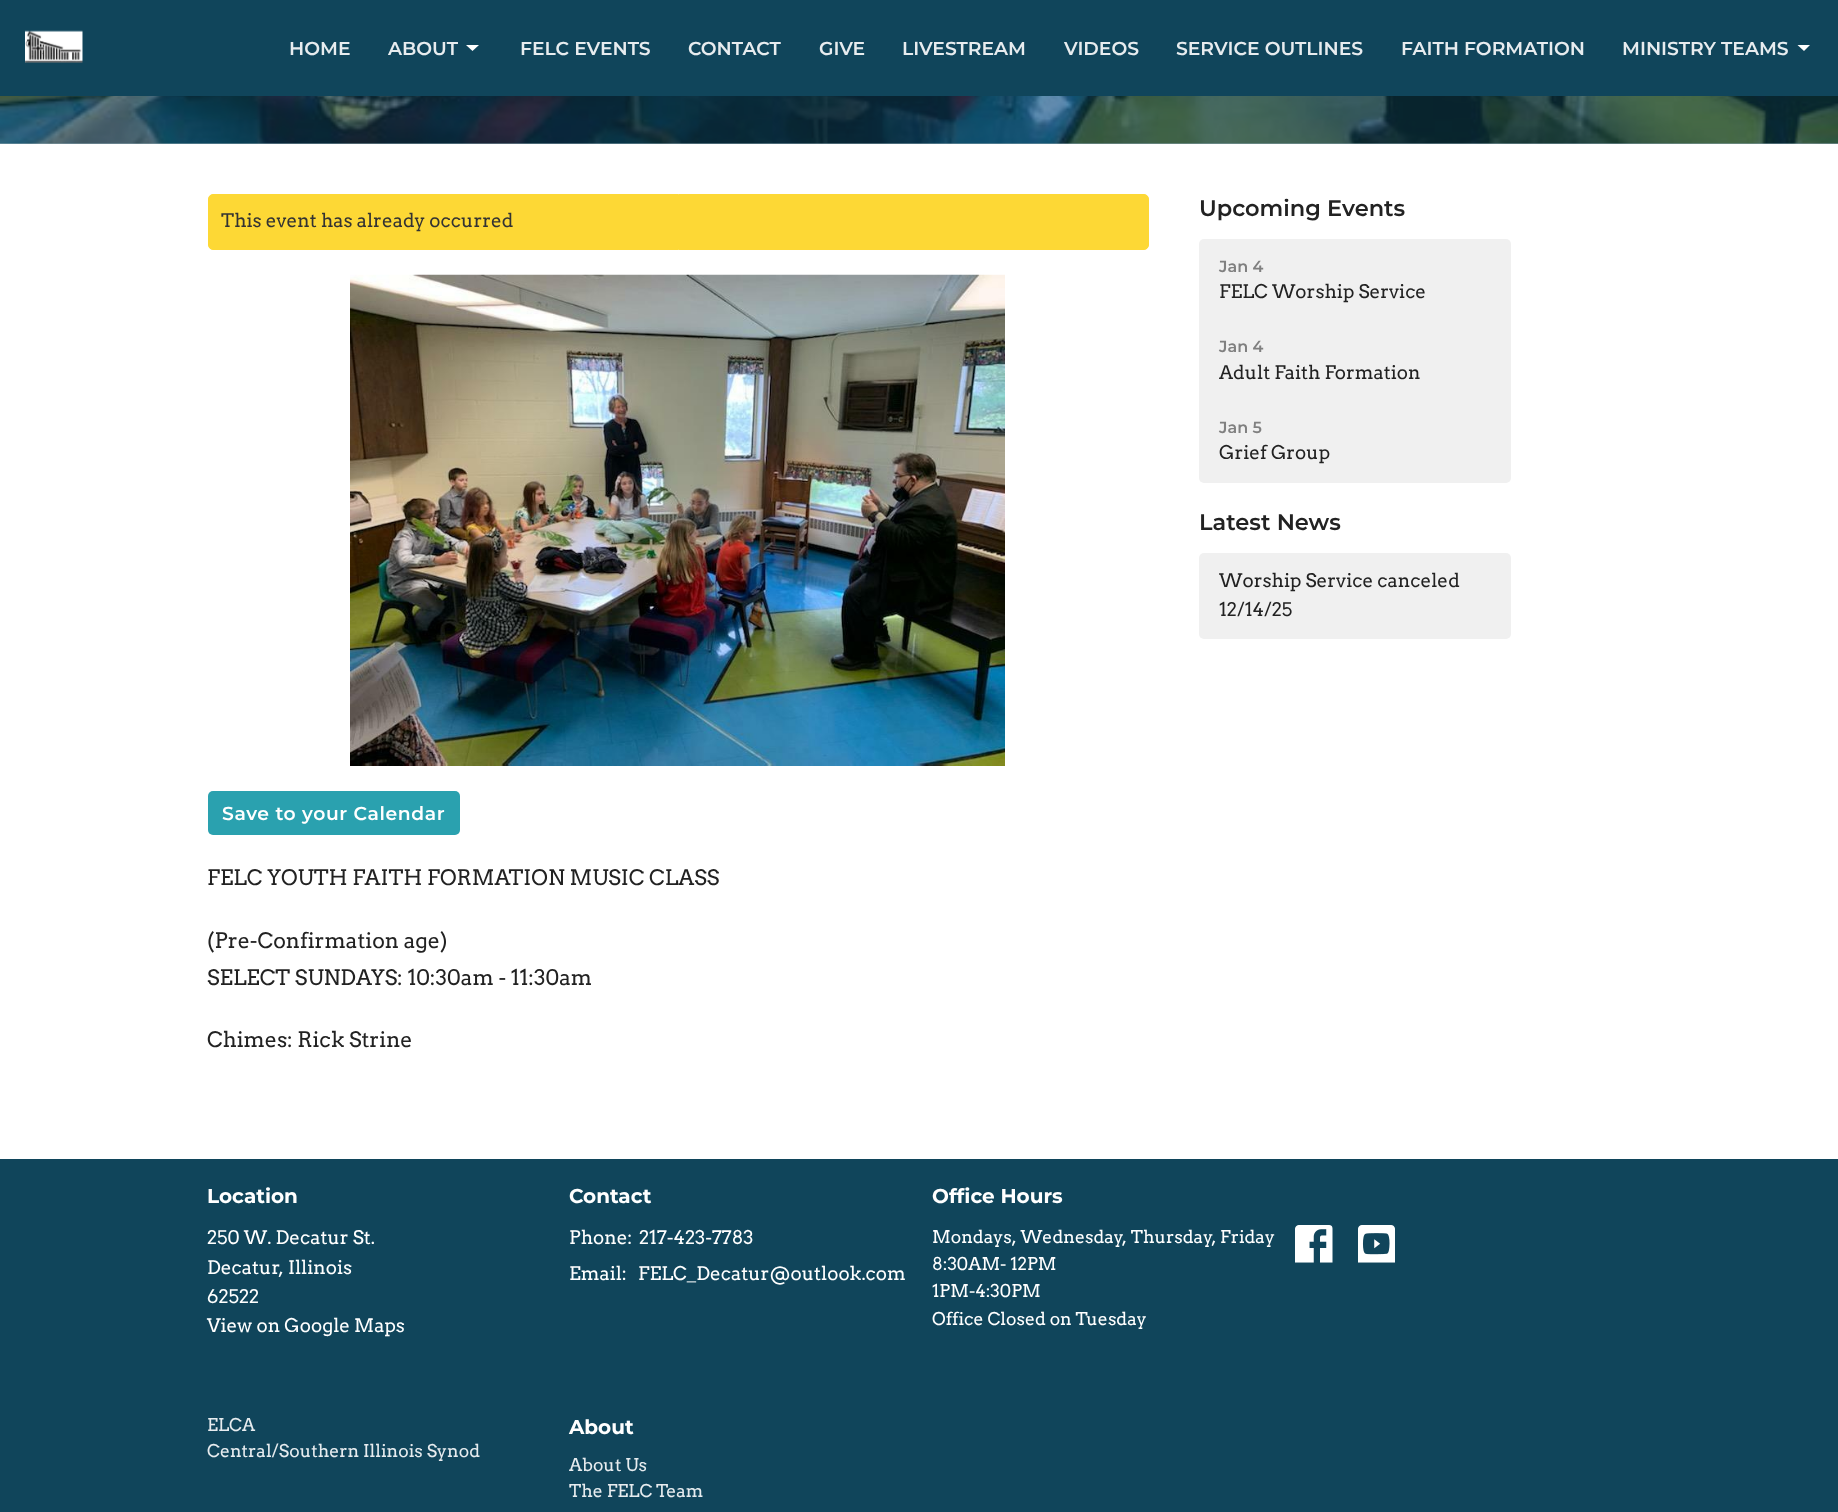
<!DOCTYPE html>
<meta charset="utf-8">
<style>body { margin: 0 } canvas { display: block }</style>
<canvas id="canvas" width="1838" height="1512"></canvas>
<script type="module">
  const canvas = document.getElementById("canvas");
  const ctx = canvas.getContext("2d");
  ctx.miterLimit = 4;
  ctx.fontKerning = "normal";
  async function loadImage(src) {
    const img = new Image();
    img.src = src;
    await img.decode();
    return img;
  }

  ctx.fillStyle = "#ffffff";
  ctx.fillRect(0, 0, 1838, 1512);
  ctx.fillStyle = "#8aa4af";
  ctx.fillRect(0, 143, 1838, 1);
  ctx.fillStyle = "#10455b";
  ctx.fillRect(0, 0, 1838, 96);
  ctx.drawImage(await loadImage("img1.png"), 25, 30, 58, 33);
  ctx.font = "600 18.75px Montserrat";
  ctx.fillStyle = "#e7ecef";
  ctx.fillText("HOME", 289, 55);
  ctx.fillText("ABOUT", 388, 55);
  ctx.fillStyle = "#ffffff";
  ctx.beginPath();
  ctx.moveTo(466, 45);
  ctx.lineTo(472.5, 51);
  ctx.lineTo(479, 45);
  ctx.closePath();
  ctx.fill();
  ctx.fillStyle = "#e7ecef";
  ctx.fillText("FELC EVENTS", 520, 55);
  ctx.fillText("CONTACT", 688, 55);
  ctx.fillText("GIVE", 819, 55);
  ctx.fillText("LIVESTREAM", 902, 55);
  ctx.fillText("VIDEOS", 1064, 55);
  ctx.fillText("SERVICE OUTLINES", 1176, 55);
  ctx.fillText("FAITH FORMATION", 1401, 55);
  ctx.fillText("MINISTRY TEAMS", 1622, 55);
  ctx.fillStyle = "#ffffff";
  ctx.beginPath();
  ctx.moveTo(1797.5, 45);
  ctx.lineTo(1804, 51);
  ctx.lineTo(1810, 45);
  ctx.closePath();
  ctx.fill();
  ctx.drawImage(await loadImage("img2.png"), 0, 96, 1838, 48);
  ctx.fillStyle = "#fdd835";
  ctx.beginPath();
  ctx.roundRect(208.5, 194.5, 940, 55, 4.5);
  ctx.fill();
  ctx.strokeStyle = "#fdd835";
  ctx.stroke();
  ctx.font = "18.75px Arvo";
  ctx.fillStyle = "#333333";
  ctx.fillText("This event has already occurred", 221, 227);
  ctx.drawImage(await loadImage("img3.png"), 350, 274, 655, 492);
  ctx.fillStyle = "#2aa1af";
  ctx.beginPath();
  ctx.roundRect(208, 791, 252, 44, 5);
  ctx.fill();
  ctx.letterSpacing = "0.6px";
  ctx.font = "600 18.75px Montserrat";
  ctx.fillStyle = "#ffffff";
  ctx.fillText("Save to your Calendar", 222, 820);
  ctx.letterSpacing = "0px";
  ctx.font = "21.25px Arvo";
  ctx.fillStyle = "#222222";
  ctx.fillText("FELC YOUTH FAITH FORMATION MUSIC CLASS", 207, 885);
  ctx.fillText("(Pre-Confirmation age)", 207, 948);
  ctx.fillText("SELECT SUNDAYS: 10:30am - 11:30am", 207, 985);
  ctx.fillText("Chimes: Rick Strine", 207, 1047);
  ctx.font = "600 22.5px Montserrat";
  ctx.fillText("Upcoming Events", 1199, 216);
  ctx.fillStyle = "#f0f0f0";
  ctx.beginPath();
  ctx.roundRect(1199, 239, 312, 82, [5, 5, 0, 0]);
  ctx.fill();
  ctx.font = "600 16px Montserrat";
  ctx.fillStyle = "#808080";
  ctx.fillText("Jan 4", 1219, 272);
  ctx.font = "18.75px Arvo";
  ctx.fillStyle = "#222222";
  ctx.fillText("FELC Worship Service", 1219, 298);
  ctx.fillStyle = "#f0f0f0";
  ctx.fillRect(1199, 321, 312, 79);
  ctx.font = "600 16px Montserrat";
  ctx.fillStyle = "#808080";
  ctx.fillText("Jan 4", 1219, 352);
  ctx.font = "18.75px Arvo";
  ctx.fillStyle = "#222222";
  ctx.fillText("Adult Faith Formation", 1219, 379);
  ctx.fillStyle = "#f0f0f0";
  ctx.beginPath();
  ctx.roundRect(1199, 400, 312, 83, [0, 0, 5, 5]);
  ctx.fill();
  ctx.font = "600 16px Montserrat";
  ctx.fillStyle = "#808080";
  ctx.fillText("Jan 5", 1219, 433);
  ctx.font = "18.75px Arvo";
  ctx.fillStyle = "#222222";
  ctx.fillText("Grief Group", 1219, 459);
  ctx.font = "600 22.5px Montserrat";
  ctx.fillText("Latest News", 1199, 530);
  ctx.fillStyle = "#f0f0f0";
  ctx.beginPath();
  ctx.roundRect(1199, 553, 312, 86, 5);
  ctx.fill();
  ctx.font = "18.75px Arvo";
  ctx.fillStyle = "#222222";
  ctx.fillText("Worship Service canceled", 1219, 587);
  ctx.fillText("12/14/25", 1219, 616);
  ctx.fillStyle = "#10455b";
  ctx.fillRect(0, 1159, 1838, 353);
  ctx.font = "bold 20px Montserrat";
  ctx.fillStyle = "#ffffff";
  ctx.fillText("Location", 207, 1203);
  ctx.font = "18.75px Arvo";
  ctx.fillText("250 W. Decatur St.", 207, 1244);
  ctx.fillText("Decatur, Illinois", 207, 1274);
  ctx.fillText("62522", 207, 1303);
  ctx.fillText("View on Google Maps", 207, 1332);
  ctx.font = "bold 20px Montserrat";
  ctx.fillText("Contact", 569, 1203);
  ctx.font = "18.75px Arvo";
  ctx.fillText("Phone:", 569, 1244);
  ctx.fillText("217-423-7783", 639, 1244);
  ctx.fillText("Email:", 569, 1280);
  ctx.fillText("FELC_Decatur@outlook.com", 638, 1280);
  ctx.font = "bold 20px Montserrat";
  ctx.fillText("Office Hours", 932, 1203);
  ctx.font = "17.5px Arvo";
  ctx.fillText("Mondays, Wednesday, Thursday, Friday", 932, 1243);
  ctx.fillText("8:30AM- 12PM", 932, 1270);
  ctx.fillText("1PM-4:30PM", 932, 1297);
  ctx.fillText("Office Closed on Tuesday", 932, 1325);
  ctx.drawImage(await loadImage("img4.png"), 1295, 1225, 38, 38);
  ctx.drawImage(await loadImage("img5.png"), 1358, 1225, 37, 38);
  ctx.fillStyle = "#e7ecef";
  ctx.fillText("ELCA", 207, 1431);
  ctx.fillText("Central/Southern Illinois Synod", 207, 1457);
  ctx.font = "bold 20px Montserrat";
  ctx.fillStyle = "#ffffff";
  ctx.fillText("About", 569, 1434);
  ctx.font = "17.5px Arvo";
  ctx.fillStyle = "#e7ecef";
  ctx.fillText("About Us", 569, 1471);
  ctx.fillText("The FELC Team", 569, 1497);
</script>
